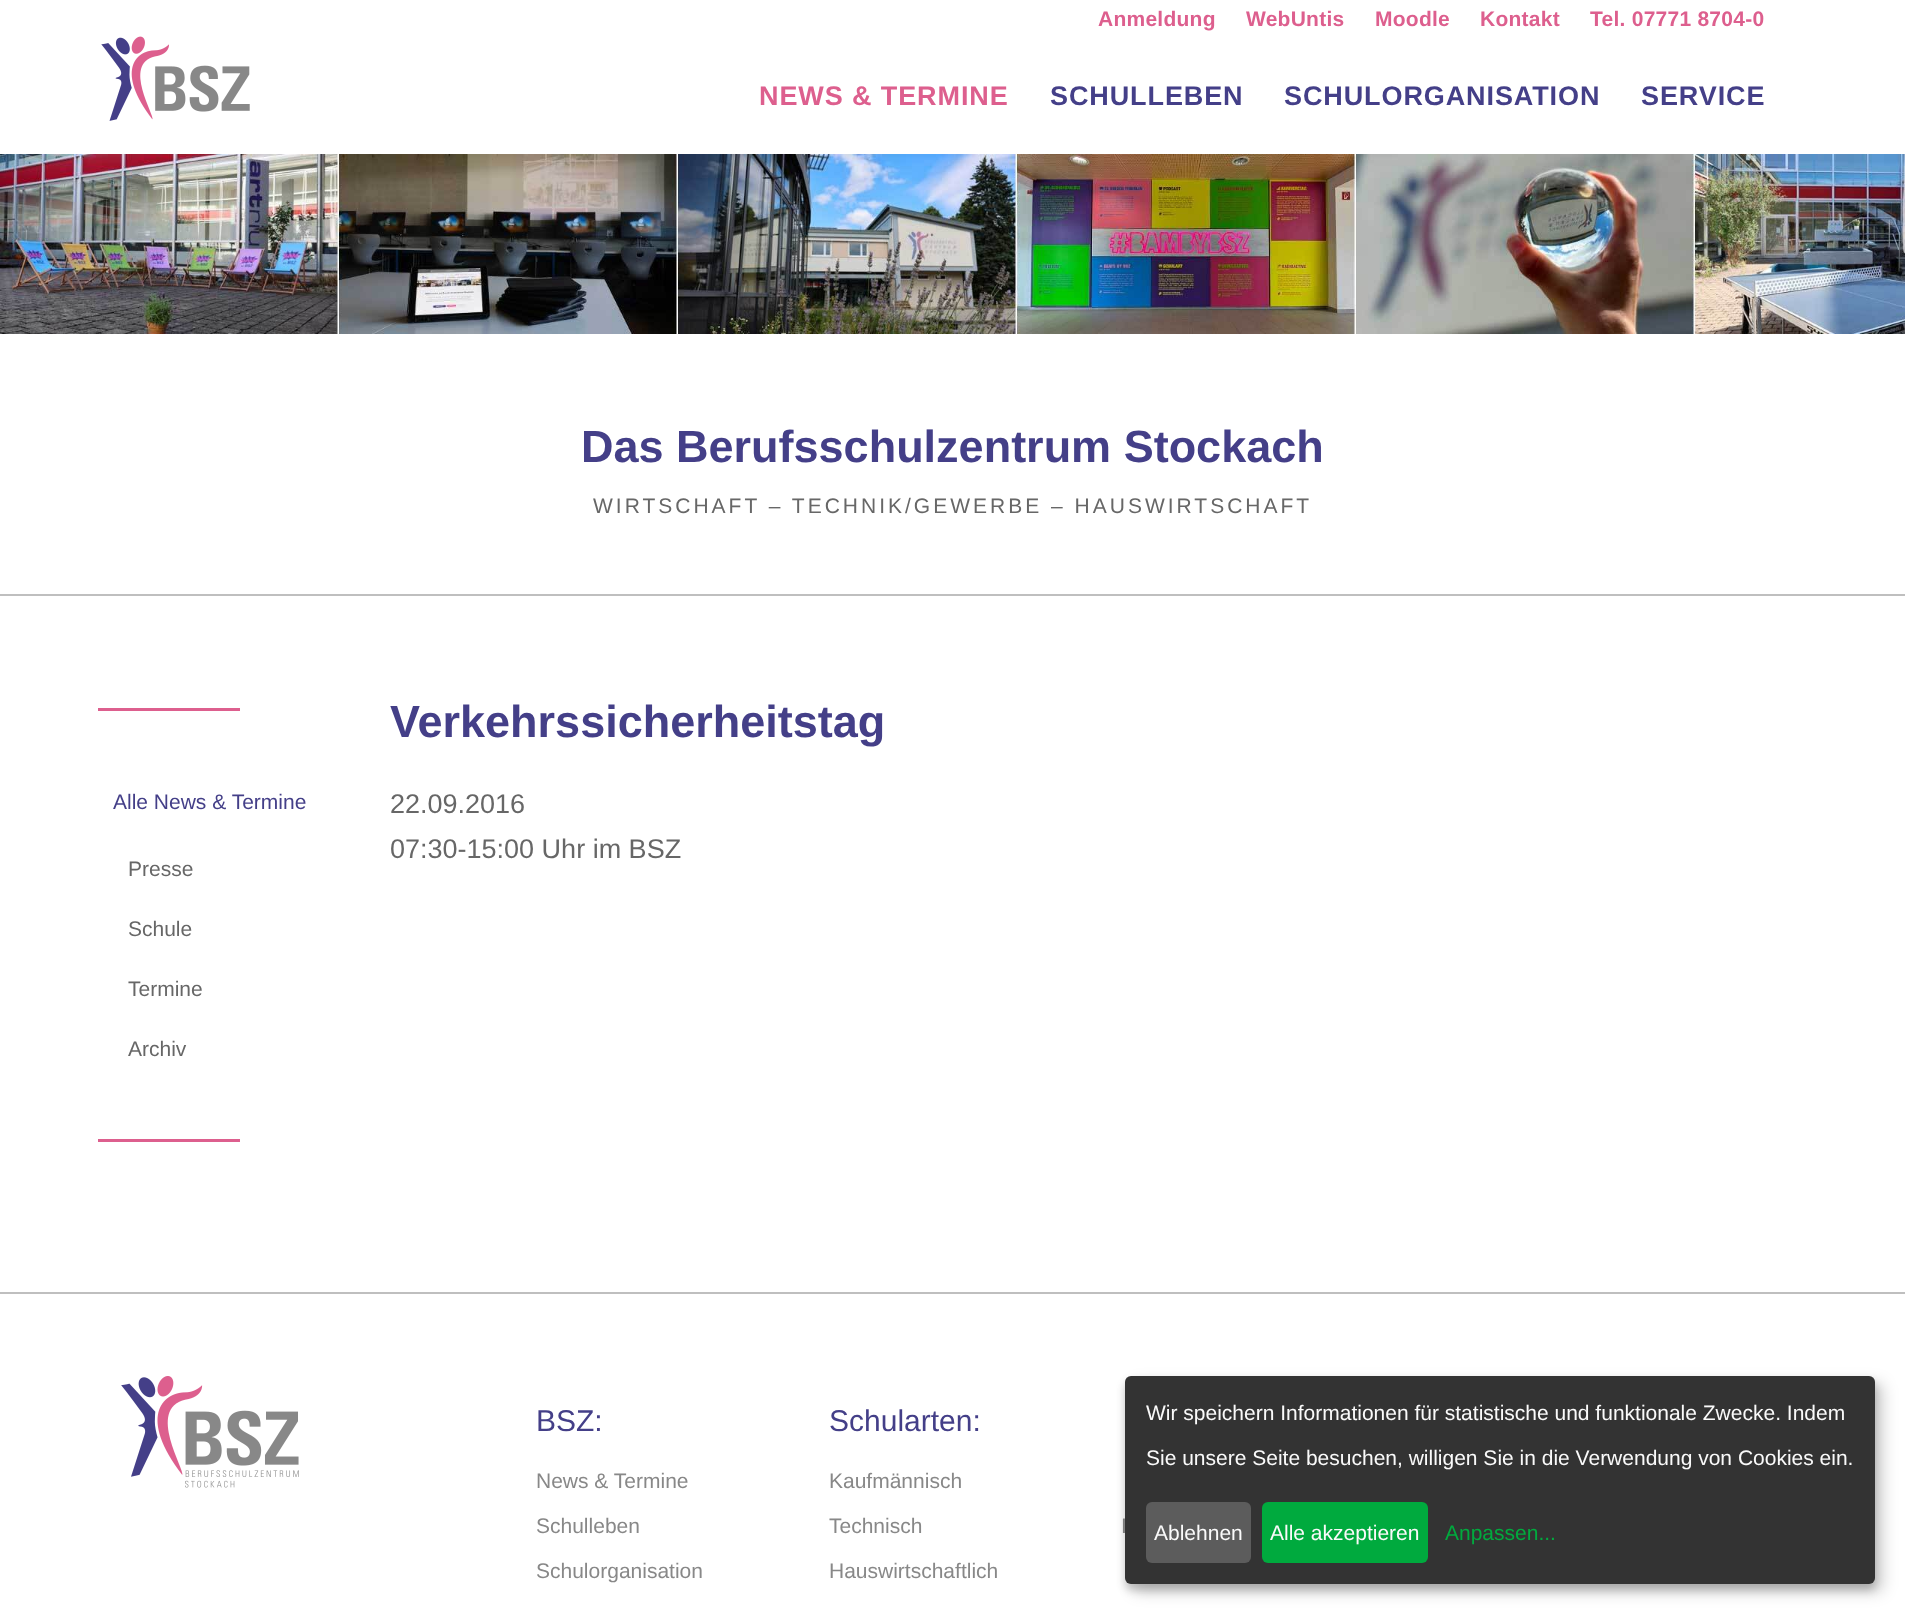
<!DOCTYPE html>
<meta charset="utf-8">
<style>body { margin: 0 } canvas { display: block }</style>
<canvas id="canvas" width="1905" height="1613"></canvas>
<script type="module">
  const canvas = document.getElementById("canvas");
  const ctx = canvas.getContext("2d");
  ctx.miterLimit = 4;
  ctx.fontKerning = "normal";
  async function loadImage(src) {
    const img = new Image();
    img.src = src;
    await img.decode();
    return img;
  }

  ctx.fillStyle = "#ffffff";
  ctx.fillRect(0, 0, 1905, 1613);
  ctx.letterSpacing = "0.25px";
  ctx.font = "bold 21px Liberation Sans";
  ctx.fillStyle = "#dd5f8e";
  ctx.fillText("Anmeldung", 1098, 26);
  ctx.fillText("WebUntis", 1246, 26);
  ctx.fillText("Moodle", 1375, 26);
  ctx.fillText("Kontakt", 1480, 26);
  ctx.fillText("Tel. 07771 8704-0", 1590, 26);
  ctx.drawImage(await loadImage("img1.png"), 101, 36, 149, 85);
  ctx.letterSpacing = "0.9px";
  ctx.font = "bold 27px Liberation Sans";
  ctx.fillText("NEWS & TERMINE", 759, 105);
  ctx.fillStyle = "#443f88";
  ctx.fillText("SCHULLEBEN", 1050, 105);
  ctx.fillText("SCHULORGANISATION", 1284, 105);
  ctx.fillText("SERVICE", 1641, 105);
  ctx.drawImage(await loadImage("img2.png"), 0, 154, 1905, 180);
  ctx.letterSpacing = "0px";
  ctx.font = "bold 45px Liberation Sans";
  ctx.fillText("Das Berufsschulzentrum Stockach", 581, 462);
  ctx.letterSpacing = "3px";
  ctx.font = "21px Liberation Sans";
  ctx.fillStyle = "#676767";
  ctx.fillText("WIRTSCHAFT – TECHNIK/GEWERBE – HAUSWIRTSCHAFT", 593, 513);
  ctx.fillStyle = "#bfbfbf";
  ctx.fillRect(0, 594, 1905, 2);
  ctx.fillStyle = "#dd5f8e";
  ctx.fillRect(98, 708, 142, 3);
  ctx.fillRect(98, 1139, 142, 3);
  ctx.letterSpacing = "0px";
  ctx.fillStyle = "#443f88";
  ctx.fillText("Alle News & Termine", 113, 809);
  ctx.fillStyle = "#676767";
  ctx.fillText("Presse", 128, 876);
  ctx.fillText("Schule", 128, 936);
  ctx.fillText("Termine", 128, 996);
  ctx.fillText("Archiv", 128, 1056);
  ctx.font = "bold 45px Liberation Sans";
  ctx.fillStyle = "#443f88";
  ctx.fillText("Verkehrssicherheitstag", 390, 737);
  ctx.font = "27px Liberation Sans";
  ctx.fillStyle = "#676767";
  ctx.fillText("22.09.2016", 390, 813);
  ctx.fillText("07:30-15:00 Uhr im BSZ", 390, 858);
  ctx.fillStyle = "#bfbfbf";
  ctx.fillRect(0, 1292, 1905, 2);
  ctx.drawImage(await loadImage("img3.png"), 121, 1376, 178, 112);
  ctx.font = "30px Liberation Sans";
  ctx.fillStyle = "#443f88";
  ctx.fillText("BSZ:", 536, 1431);
  ctx.font = "21px Liberation Sans";
  ctx.fillStyle = "#888888";
  ctx.fillText("News & Termine", 536, 1488);
  ctx.fillText("Schulleben", 536, 1533);
  ctx.fillText("Schulorganisation", 536, 1578);
  ctx.font = "30px Liberation Sans";
  ctx.fillStyle = "#443f88";
  ctx.fillText("Schularten:", 829, 1431);
  ctx.font = "21px Liberation Sans";
  ctx.fillStyle = "#888888";
  ctx.fillText("Kaufmännisch", 829, 1488);
  ctx.fillText("Technisch", 829, 1533);
  ctx.fillText("Hauswirtschaftlich", 829, 1578);
  ctx.fillText("I", 1121, 1533);
  ctx.fillStyle = "rgba(0, 0, 0, 0.19)";
  ctx.filter = "blur(7.5px)";
  ctx.beginPath();
  ctx.roundRect(1133, 1383, 750, 209, 6);
  ctx.fill();
  ctx.filter = "none";
  ctx.fillStyle = "rgba(0, 0, 0, 0.2)";
  ctx.filter = "blur(4.5px)";
  ctx.beginPath();
  ctx.roundRect(1125, 1382, 750, 208, 6);
  ctx.fill();
  ctx.filter = "none";
  ctx.fillStyle = "#333333";
  ctx.beginPath();
  ctx.roundRect(1125, 1376, 750, 208, 6);
  ctx.fill();
  ctx.fillStyle = "#fafafa";
  ctx.fillText("Wir speichern Informationen für statistische und funktionale Zwecke. Indem", 1146, 1420);
  ctx.fillText("Sie unsere Seite besuchen, willigen Sie in die Verwendung von Cookies ein.", 1146, 1465);
  ctx.fillStyle = "#5c5c5c";
  ctx.beginPath();
  ctx.roundRect(1146, 1502, 105, 61, 6);
  ctx.fill();
  ctx.fillStyle = "#fafafa";
  ctx.fillText("Ablehnen", 1154, 1540);
  ctx.fillStyle = "#00aa3e";
  ctx.beginPath();
  ctx.roundRect(1262, 1502, 166, 61, 6);
  ctx.fill();
  ctx.fillStyle = "#fafafa";
  ctx.fillText("Alle akzeptieren", 1270, 1540);
  ctx.fillStyle = "#00aa3e";
  ctx.fillText("Anpassen...", 1445, 1540);
</script>
